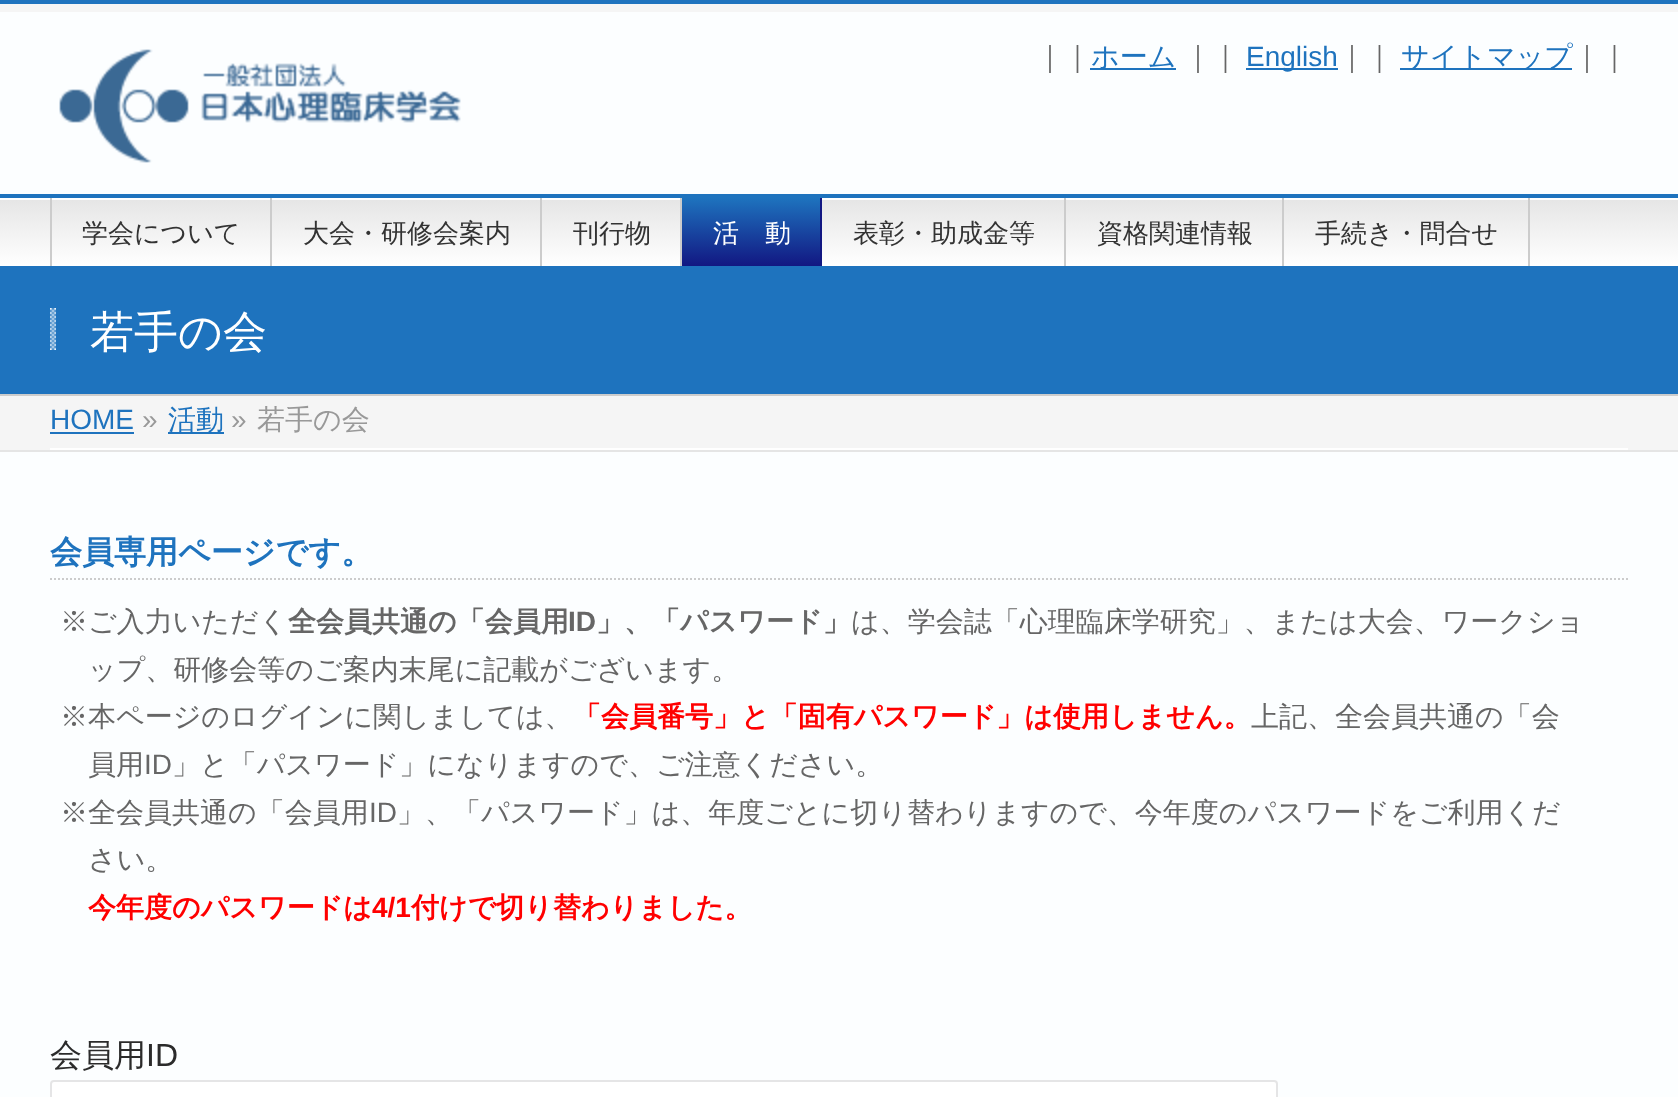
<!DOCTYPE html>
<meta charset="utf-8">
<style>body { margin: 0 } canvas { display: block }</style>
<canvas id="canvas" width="1678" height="1097"></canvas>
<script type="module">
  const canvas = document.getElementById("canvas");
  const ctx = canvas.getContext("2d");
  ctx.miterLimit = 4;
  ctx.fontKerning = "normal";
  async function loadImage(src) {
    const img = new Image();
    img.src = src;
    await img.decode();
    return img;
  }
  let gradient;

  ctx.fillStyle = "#fcfeff";
  ctx.fillRect(0, 0, 1678, 1097);
  ctx.fillStyle = "#f5f5f5";
  ctx.fillRect(0, 4, 1678, 8);
  ctx.fillStyle = "#1e73be";
  ctx.fillRect(0, 0, 1678, 4);
  ctx.drawImage(await loadImage("img1.png"), 59, 49, 402, 114);
  ctx.font = "500 28px WenQuanYi Zen Hei";
  ctx.fillStyle = "#666666";
  ctx.fillText("｜｜", 1036, 66);
  ctx.fillStyle = "#1e73be";
  ctx.fillRect(1090, 68, 86, 2);
  ctx.fillText("ホーム", 1091, 66);
  ctx.fillStyle = "#666666";
  ctx.fillText("｜｜", 1184, 66);
  ctx.fillStyle = "#1e73be";
  ctx.fillRect(1246, 68, 92, 2);
  ctx.font = "28px Liberation Sans";
  ctx.fillText("English", 1246, 66);
  ctx.font = "500 28px WenQuanYi Zen Hei";
  ctx.fillStyle = "#666666";
  ctx.fillText("｜｜", 1338, 66);
  ctx.fillStyle = "#1e73be";
  ctx.fillRect(1400, 68, 172, 2);
  ctx.fillText("サイトマップ", 1401, 66);
  ctx.fillStyle = "#666666";
  ctx.fillText("｜｜", 1573, 66);
  gradient = ctx.createLinearGradient(839, 198, 839, 266);
  gradient.addColorStop(0, "#e5e5e5");
  gradient.addColorStop(1, "#ffffff");
  ctx.fillStyle = gradient;
  ctx.fillRect(0, 200, 1678, 66);
  ctx.fillStyle = "#ffffff";
  ctx.fillRect(0, 198, 1678, 2);
  ctx.fillStyle = "#1e73be";
  ctx.fillRect(0, 194, 1678, 4);
  ctx.fillStyle = "#cccccc";
  ctx.fillRect(50, 198, 2, 68);
  ctx.fillRect(270, 198, 2, 68);
  ctx.font = "500 26px WenQuanYi Zen Hei";
  ctx.fillStyle = "#333333";
  ctx.fillText("学会について", 82, 242);
  ctx.fillStyle = "#cccccc";
  ctx.fillRect(540, 198, 2, 68);
  ctx.fillStyle = "#333333";
  ctx.fillText("大会・研修会案内", 303, 242);
  ctx.fillStyle = "#cccccc";
  ctx.fillRect(680, 198, 2, 68);
  ctx.fillStyle = "#333333";
  ctx.fillText("刊行物", 573, 242);
  gradient = ctx.createLinearGradient(751, 198, 751, 266);
  gradient.addColorStop(0, "#1e73be");
  gradient.addColorStop(1, "#121782");
  ctx.fillStyle = gradient;
  ctx.fillRect(682, 198, 138, 68);
  ctx.fillStyle = "#121782";
  ctx.fillRect(820, 198, 2, 68);
  ctx.fillStyle = "#ffffff";
  ctx.fillText("活　動", 713, 242);
  ctx.fillStyle = "#cccccc";
  ctx.fillRect(1064, 198, 2, 68);
  ctx.fillStyle = "#333333";
  ctx.fillText("表彰・助成金等", 853, 242);
  ctx.fillStyle = "#cccccc";
  ctx.fillRect(1282, 198, 2, 68);
  ctx.fillStyle = "#333333";
  ctx.fillText("資格関連情報", 1097, 242);
  ctx.fillStyle = "#cccccc";
  ctx.fillRect(1528, 198, 2, 68);
  ctx.fillStyle = "#333333";
  ctx.fillText("手続き・問合せ", 1315, 242);
  ctx.fillStyle = "#1e73be";
  ctx.fillRect(0, 266, 1678, 128);
  ctx.fillStyle = "#cccccc";
  ctx.fillRect(0, 394, 1678, 2);
  ctx.drawImage(await loadImage("img2.png"), 50, 308, 6, 42);
  ctx.font = "500 44px WenQuanYi Zen Hei";
  ctx.fillStyle = "#ffffff";
  ctx.fillText("若手の会", 90, 347);
  ctx.fillStyle = "#f5f5f5";
  ctx.fillRect(0, 396, 1678, 54);
  ctx.fillStyle = "#e5e5e5";
  ctx.fillRect(0, 450, 1678, 2);
  ctx.fillStyle = "#ffffff";
  ctx.fillRect(50, 448, 1578, 2);
  ctx.font = "28px Liberation Sans";
  ctx.fillStyle = "#1e73be";
  ctx.fillText("HOME", 50, 429);
  ctx.fillRect(50, 432, 84, 2);
  ctx.fillStyle = "#999999";
  ctx.fillText("»", 142, 429);
  ctx.fillStyle = "#1e73be";
  ctx.fillRect(168, 432, 56, 2);
  ctx.font = "500 28px WenQuanYi Zen Hei";
  ctx.fillText("活動", 168, 429);
  ctx.font = "28px Liberation Sans";
  ctx.fillStyle = "#999999";
  ctx.fillText("»", 231, 429);
  ctx.font = "500 28px WenQuanYi Zen Hei";
  ctx.fillText("若手の会", 257, 429);
  ctx.beginPath();
  ctx.moveTo(50, 579);
  ctx.lineTo(1628, 579);
  ctx.strokeStyle = "#cccccc";
  ctx.lineWidth = 2;
  ctx.setLineDash([2, 2]);
  ctx.stroke();
  ctx.font = "bold 32px WenQuanYi Zen Hei";
  ctx.fillStyle = "#1e73be";
  ctx.fillText("会員専用ページです。", 50, 563);
  ctx.font = "500 28px WenQuanYi Zen Hei";
  ctx.fillStyle = "#666666";
  ctx.fillText("※ご入力いただく", 60, 631);
  ctx.font = "bold 28px WenQuanYi Zen Hei";
  ctx.fillText("全会員共通の「会員用", 288, 631);
  ctx.font = "bold 28px Liberation Sans";
  ctx.fillText("ID", 568, 631);
  ctx.font = "bold 28px WenQuanYi Zen Hei";
  ctx.fillText("」、「パスワード」", 596, 631);
  ctx.font = "500 28px WenQuanYi Zen Hei";
  ctx.fillText("は、学会誌「心理臨床学研究」、または大会、ワークショ", 851, 631);
  ctx.fillText("ップ、研修会等のご案内末尾に記載がございます。", 88, 679);
  ctx.fillText("※本ページのログインに関しましては、", 60, 726);
  ctx.font = "bold 28px WenQuanYi Zen Hei";
  ctx.fillStyle = "#ff0000";
  ctx.fillText("「会員番号」と「固有パスワード」は使用しません。", 573, 726);
  ctx.font = "500 28px WenQuanYi Zen Hei";
  ctx.fillStyle = "#666666";
  ctx.fillText("上記、全会員共通の「会", 1251, 726);
  ctx.fillText("員用", 88, 774);
  ctx.font = "28px Liberation Sans";
  ctx.fillText("ID", 144, 774);
  ctx.font = "500 28px WenQuanYi Zen Hei";
  ctx.fillText("」と「パスワード」になりますので、ご注意ください。", 172, 774);
  ctx.fillText("※全会員共通の「会員用", 60, 822);
  ctx.font = "28px Liberation Sans";
  ctx.fillText("ID", 369, 822);
  ctx.font = "500 28px WenQuanYi Zen Hei";
  ctx.fillText("」、「パスワード」は、年度ごとに切り替わりますので、今年度のパスワードをご利用くだ", 397, 822);
  ctx.fillText("さい。", 88, 869);
  ctx.font = "bold 28px WenQuanYi Zen Hei";
  ctx.fillStyle = "#ff0000";
  ctx.fillText("今年度のパスワードは", 88, 917);
  ctx.font = "bold 28px Liberation Sans";
  ctx.fillText("4/1", 372, 917);
  ctx.font = "bold 28px WenQuanYi Zen Hei";
  ctx.fillText("付けで切り替わりました。", 411, 917);
  ctx.font = "500 32px WenQuanYi Zen Hei";
  ctx.fillStyle = "#2b2b2b";
  ctx.fillText("会員用", 50, 1066);
  ctx.font = "32px Liberation Sans";
  ctx.fillText("ID", 146, 1066);
  ctx.fillStyle = "#ffffff";
  ctx.beginPath();
  ctx.roundRect(51, 1081, 1226, 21, 3);
  ctx.fill();
  ctx.strokeStyle = "#e5e5e6";
  ctx.setLineDash([]);
  ctx.stroke();
</script>
